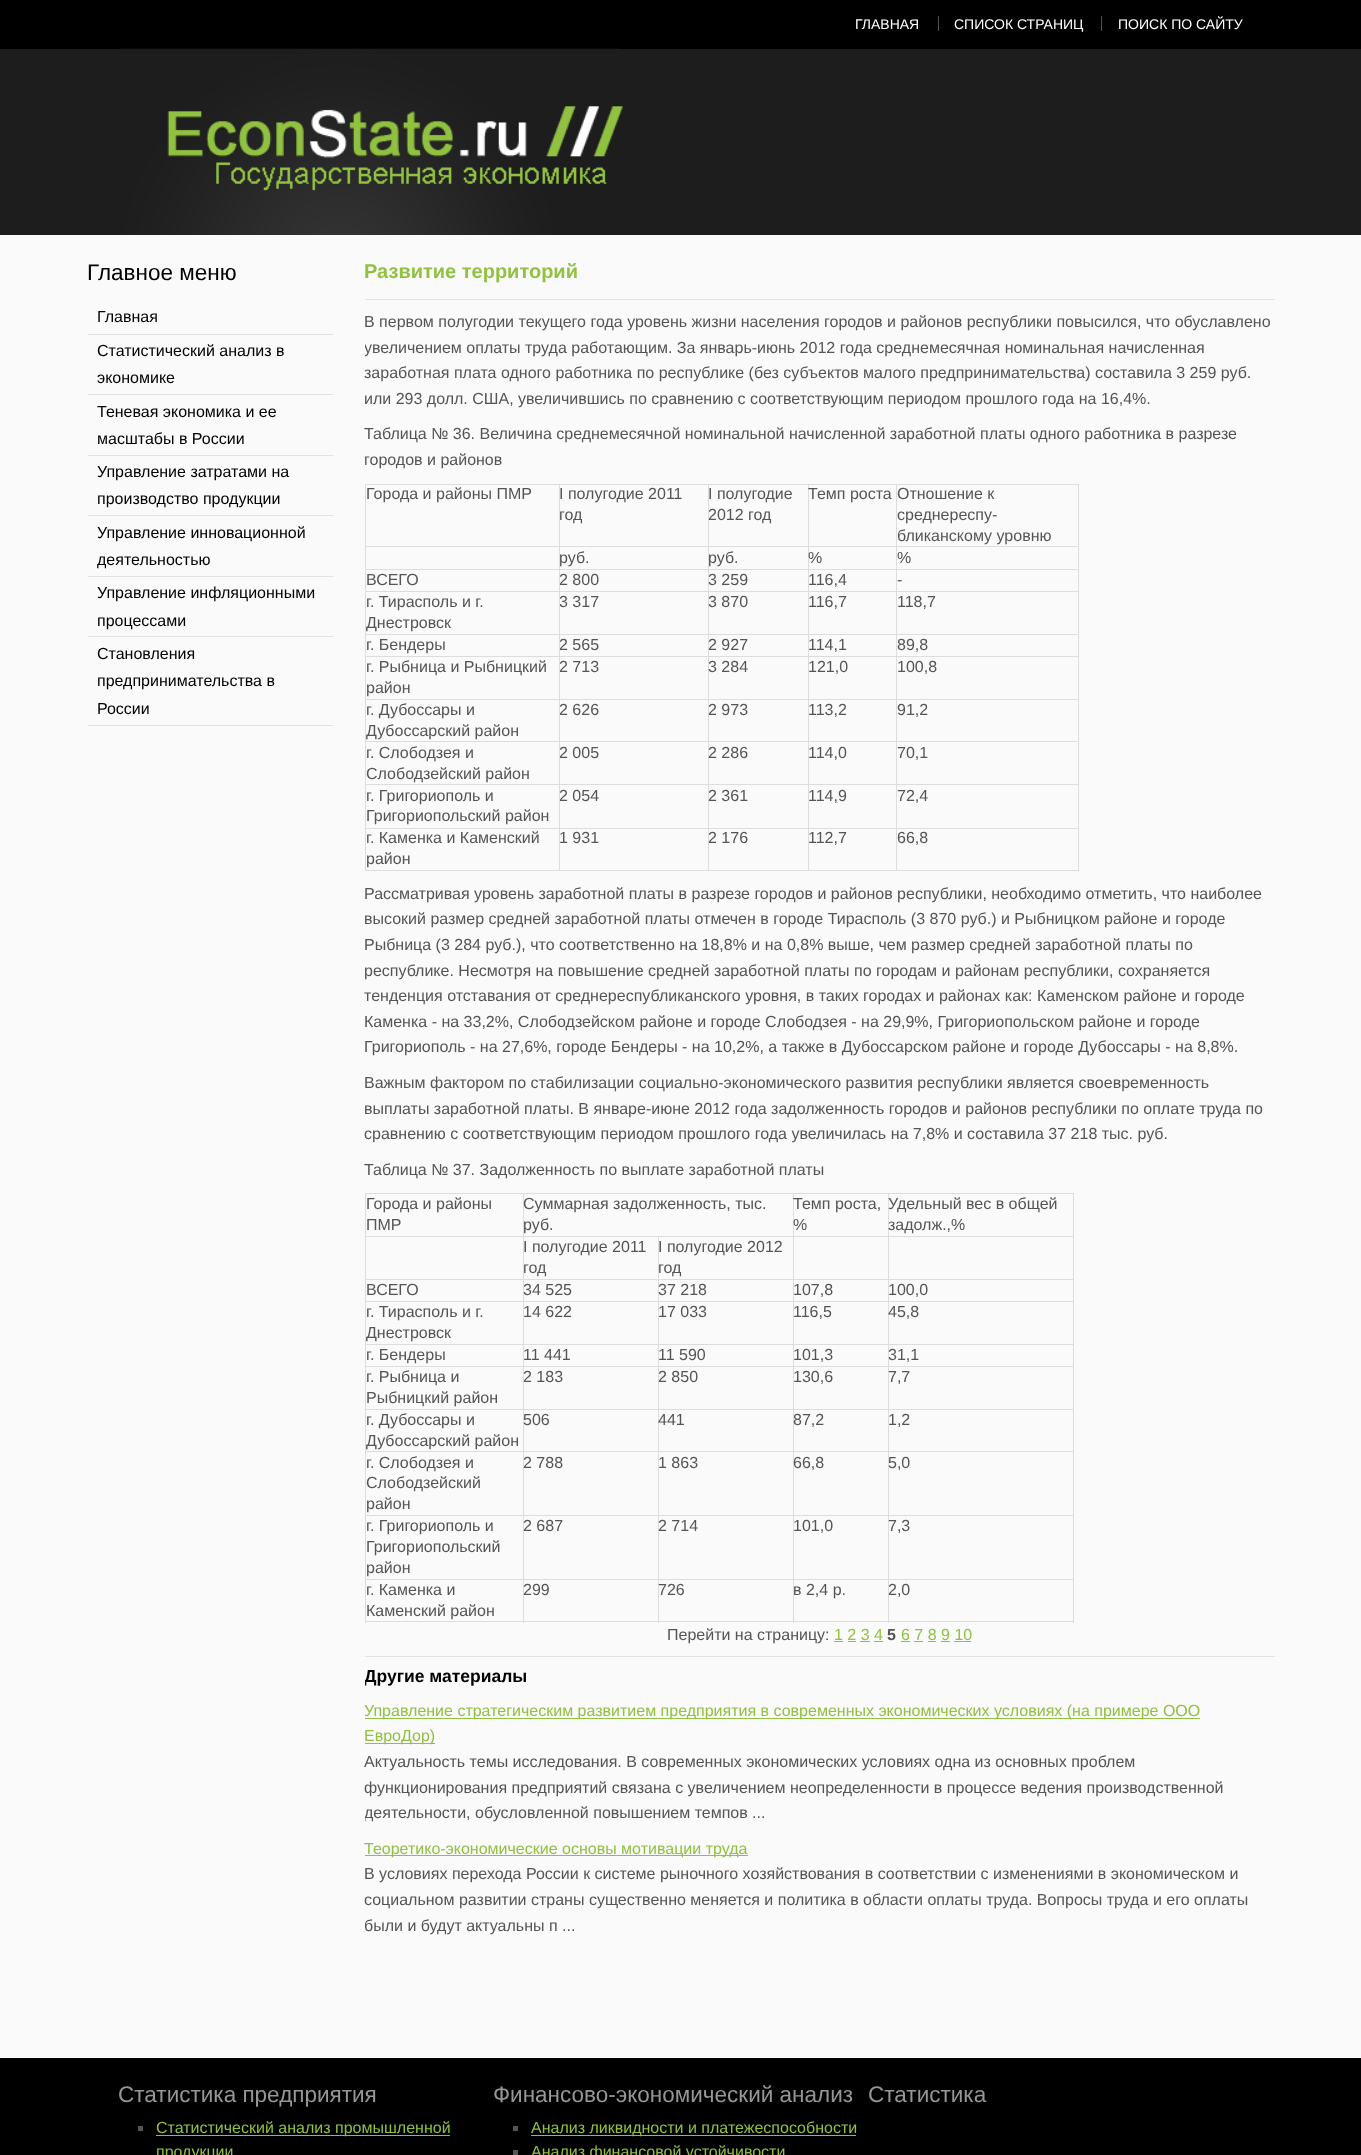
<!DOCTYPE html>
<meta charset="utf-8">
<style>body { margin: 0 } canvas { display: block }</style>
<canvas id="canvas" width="1361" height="2155"></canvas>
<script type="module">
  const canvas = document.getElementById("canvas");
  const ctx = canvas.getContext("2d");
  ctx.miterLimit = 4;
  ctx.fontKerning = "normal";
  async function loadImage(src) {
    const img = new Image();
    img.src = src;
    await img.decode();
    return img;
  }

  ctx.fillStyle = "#000000";
  ctx.fillRect(0, 0, 1361, 2155);
  ctx.font = "14px Liberation Sans";
  ctx.fillStyle = "#ffffff";
  ctx.fillText("ГЛАВНАЯ", 855, 29);
  ctx.fillText("СПИСОК СТРАНИЦ", 954, 29);
  ctx.fillStyle = "#525252";
  ctx.fillRect(938, 16, 1, 15);
  ctx.fillStyle = "#ffffff";
  ctx.fillText("ПОИСК ПО САЙТУ", 1118, 29);
  ctx.fillStyle = "#525252";
  ctx.fillRect(1101, 16, 1, 15);
  ctx.fillStyle = "#1d1d1d";
  ctx.fillRect(0, 49, 1361, 186);
  ctx.drawImage(await loadImage("img1.png"), 119, 48, 501, 187);
  ctx.drawImage(await loadImage("img2.png"), 167, 106, 456, 85);
  ctx.fillStyle = "#fafafa";
  ctx.fillRect(0, 235, 1361, 1823);
  ctx.font = "22.5px Liberation Sans";
  ctx.fillStyle = "#000000";
  ctx.fillText("Главное меню", 87, 280);
  ctx.fillStyle = "#e2e2e2";
  ctx.fillRect(88, 334, 245, 1);
  ctx.font = "16px Liberation Sans";
  ctx.fillStyle = "#000000";
  ctx.fillText("Главная", 97, 322);
  ctx.fillStyle = "#e2e2e2";
  ctx.fillRect(88, 394, 245, 1);
  ctx.fillStyle = "#000000";
  ctx.fillText("Статистический анализ в", 97, 356);
  ctx.fillText("экономике", 97, 383);
  ctx.fillStyle = "#e2e2e2";
  ctx.fillRect(88, 455, 245, 1);
  ctx.fillStyle = "#000000";
  ctx.fillText("Теневая экономика и ее", 97, 417);
  ctx.fillText("масштабы в России", 97, 444);
  ctx.fillStyle = "#e2e2e2";
  ctx.fillRect(88, 515, 245, 1);
  ctx.fillStyle = "#000000";
  ctx.fillText("Управление затратами на", 97, 477);
  ctx.fillText("производство продукции", 97, 504);
  ctx.fillStyle = "#e2e2e2";
  ctx.fillRect(88, 576, 245, 1);
  ctx.fillStyle = "#000000";
  ctx.fillText("Управление инновационной", 97, 538);
  ctx.fillText("деятельностью", 97, 565);
  ctx.fillStyle = "#e2e2e2";
  ctx.fillRect(88, 636, 245, 1);
  ctx.fillStyle = "#000000";
  ctx.fillText("Управление инфляционными", 97, 598);
  ctx.fillText("процессами", 97, 626);
  ctx.fillStyle = "#e2e2e2";
  ctx.fillRect(88, 725, 245, 1);
  ctx.fillStyle = "#000000";
  ctx.fillText("Становления", 97, 659);
  ctx.fillText("предпринимательства в", 97, 686);
  ctx.fillText("России", 97, 714);
  ctx.font = "bold 20px Liberation Sans";
  ctx.fillStyle = "#90c140";
  ctx.fillText("Развитие территорий", 364, 278);
  ctx.fillStyle = "#e2e2e2";
  ctx.fillRect(365, 299, 910, 1);
  ctx.font = "16px Liberation Sans";
  ctx.fillStyle = "#555555";
  ctx.fillText("В первом полугодии текущего года уровень жизни населения городов и районов республики повысился, что обуславлено", 364, 327);
  ctx.save();
  ctx.beginPath();
  ctx.rect(365, 235, 910, 1729);
  ctx.clip();
  ctx.fillText("увеличением оплаты труда работающим. За январь-июнь 2012 года среднемесячная номинальная начисленная", 364, 353);
  ctx.restore();
  ctx.fillText("заработная плата одного работника по республике (без субъектов малого предпринимательства) составила 3 259 руб.", 364, 378);
  ctx.fillText("или 293 долл. США, увеличившись по сравнению с соответствующим периодом прошлого года на 16,4%.", 364, 404);
  ctx.fillText("Таблица № 36. Величина среднемесячной номинальной начисленной заработной платы одного работника в разрезе", 364, 439);
  ctx.fillText("городов и районов", 364, 465);
  ctx.fillStyle = "#dddddd";
  ctx.fillRect(365, 484, 714, 1);
  ctx.fillRect(365, 546, 714, 1);
  ctx.fillRect(365, 569, 714, 1);
  ctx.fillRect(365, 591, 714, 1);
  ctx.fillRect(365, 634, 714, 1);
  ctx.fillRect(365, 656, 714, 1);
  ctx.fillRect(365, 699, 714, 1);
  ctx.fillRect(365, 741, 714, 1);
  ctx.fillRect(365, 784, 714, 1);
  ctx.fillRect(365, 828, 714, 1);
  ctx.fillRect(1078, 828, 1, 43);
  ctx.fillRect(1078, 784, 1, 45);
  ctx.fillRect(1078, 741, 1, 44);
  ctx.fillRect(1078, 699, 1, 44);
  ctx.fillRect(1078, 656, 1, 44);
  ctx.fillRect(1078, 634, 1, 24);
  ctx.fillRect(1078, 591, 1, 44);
  ctx.fillRect(1078, 569, 1, 24);
  ctx.fillRect(1078, 546, 1, 24);
  ctx.fillRect(1078, 484, 1, 64);
  ctx.fillRect(365, 870, 714, 1);
  ctx.fillRect(365, 828, 1, 43);
  ctx.fillRect(365, 784, 1, 45);
  ctx.fillRect(365, 741, 1, 44);
  ctx.fillRect(365, 699, 1, 44);
  ctx.fillRect(365, 656, 1, 44);
  ctx.fillRect(365, 634, 1, 24);
  ctx.fillRect(365, 591, 1, 44);
  ctx.fillRect(365, 569, 1, 24);
  ctx.fillRect(365, 546, 1, 24);
  ctx.fillRect(365, 484, 1, 64);
  ctx.fillStyle = "#555555";
  ctx.fillText("Города и районы ПМР", 366, 499);
  ctx.fillText("I полугодие 2011", 559, 499);
  ctx.fillText("год", 559, 520);
  ctx.fillText("I полугодие", 708, 499);
  ctx.fillStyle = "#dddddd";
  ctx.fillRect(708, 484, 1, 387);
  ctx.fillStyle = "#555555";
  ctx.fillText("2012 год", 708, 520);
  ctx.fillStyle = "#dddddd";
  ctx.fillRect(808, 484, 1, 387);
  ctx.fillStyle = "#555555";
  ctx.fillText("Темп роста", 808, 499);
  ctx.fillText("Отношение к", 897, 499);
  ctx.fillText("среднереспу-", 897, 520);
  ctx.fillText("бликанскому уровню", 897, 541);
  ctx.fillText("руб.", 559, 563);
  ctx.fillText("руб.", 708, 563);
  ctx.fillText("%", 808, 563);
  ctx.fillText("%", 897, 563);
  ctx.fillText("ВСЕГО", 366, 585);
  ctx.fillText("2 800", 559, 585);
  ctx.fillText("3 259", 708, 585);
  ctx.fillText("116,4", 808, 585);
  ctx.fillText("-", 897, 585);
  ctx.fillText("г. Тирасполь и г.", 366, 607);
  ctx.fillText("Днестровск", 366, 628);
  ctx.fillText("3 317", 559, 607);
  ctx.fillText("3 870", 708, 607);
  ctx.fillText("116,7", 808, 607);
  ctx.fillText("118,7", 897, 607);
  ctx.fillText("г. Бендеры", 366, 650);
  ctx.fillText("2 565", 559, 650);
  ctx.fillText("2 927", 708, 650);
  ctx.fillText("114,1", 808, 650);
  ctx.fillText("89,8", 897, 650);
  ctx.fillText("г. Рыбница и Рыбницкий", 366, 672);
  ctx.fillText("район", 366, 693);
  ctx.fillText("2 713", 559, 672);
  ctx.fillText("3 284", 708, 672);
  ctx.fillText("121,0", 808, 672);
  ctx.fillText("100,8", 897, 672);
  ctx.fillText("г. Дубоссары и", 366, 715);
  ctx.fillText("Дубоссарский район", 366, 736);
  ctx.fillText("2 626", 559, 715);
  ctx.fillText("2 973", 708, 715);
  ctx.fillText("113,2", 808, 715);
  ctx.fillText("91,2", 897, 715);
  ctx.fillText("г. Слободзея и", 366, 758);
  ctx.fillText("Слободзейский район", 366, 779);
  ctx.fillText("2 005", 559, 758);
  ctx.fillText("2 286", 708, 758);
  ctx.fillText("114,0", 808, 758);
  ctx.fillText("70,1", 897, 758);
  ctx.fillText("г. Григориополь и", 366, 801);
  ctx.fillText("Григориопольский район", 366, 821);
  ctx.fillText("2 054", 559, 801);
  ctx.fillText("2 361", 708, 801);
  ctx.fillText("114,9", 808, 801);
  ctx.fillText("72,4", 897, 801);
  ctx.fillText("г. Каменка и Каменский", 366, 843);
  ctx.fillText("район", 366, 864);
  ctx.fillStyle = "#dddddd";
  ctx.fillRect(559, 484, 1, 387);
  ctx.fillStyle = "#555555";
  ctx.fillText("1 931", 559, 843);
  ctx.fillText("2 176", 708, 843);
  ctx.fillText("112,7", 808, 843);
  ctx.fillStyle = "#dddddd";
  ctx.fillRect(896, 484, 1, 387);
  ctx.fillStyle = "#555555";
  ctx.fillText("66,8", 897, 843);
  ctx.fillText("Рассматривая уровень заработной платы в разрезе городов и районов республики, необходимо отметить, что наиболее", 364, 899);
  ctx.fillText("высокий размер средней заработной платы отмечен в городе Тирасполь (3 870 руб.) и Рыбницком районе и городе", 364, 924);
  ctx.fillText("Рыбница (3 284 руб.), что соответственно на 18,8% и на 0,8% выше, чем размер средней заработной платы по", 364, 950);
  ctx.fillText("республике. Несмотря на повышение средней заработной платы по городам и районам республики, сохраняется", 364, 976);
  ctx.fillText("тенденция отставания от среднереспубликанского уровня, в таких городах и районах как: Каменском районе и городе", 364, 1001);
  ctx.fillText("Каменка - на 33,2%, Слободзейском районе и городе Слободзея - на 29,9%, Григориопольском районе и городе", 364, 1027);
  ctx.fillText("Григориополь - на 27,6%, городе Бендеры - на 10,2%, а также в Дубоссарском районе и городе Дубоссары - на 8,8%.", 364, 1052);
  ctx.fillText("Важным фактором по стабилизации социально-экономического развития республики является своевременность", 364, 1088);
  ctx.fillText("выплаты заработной платы. В январе-июне 2012 года задолженность городов и районов республики по оплате труда по", 364, 1114);
  ctx.fillText("сравнению с соответствующим периодом прошлого года увеличилась на 7,8% и составила 37 218 тыс. руб.", 364, 1139);
  ctx.fillText("Таблица № 37. Задолженность по выплате заработной платы", 364, 1175);
  ctx.fillStyle = "#dddddd";
  ctx.fillRect(365, 1193, 709, 1);
  ctx.fillRect(365, 1236, 709, 1);
  ctx.fillRect(365, 1279, 709, 1);
  ctx.fillRect(365, 1301, 709, 1);
  ctx.fillRect(365, 1344, 709, 1);
  ctx.fillRect(365, 1366, 709, 1);
  ctx.fillRect(365, 1409, 709, 1);
  ctx.fillRect(365, 1451, 709, 1);
  ctx.fillRect(365, 1515, 709, 1);
  ctx.fillRect(365, 1579, 709, 1);
  ctx.fillRect(1073, 1579, 1, 44);
  ctx.fillRect(1073, 1515, 1, 65);
  ctx.fillRect(1073, 1451, 1, 65);
  ctx.fillRect(1073, 1409, 1, 44);
  ctx.fillRect(1073, 1366, 1, 44);
  ctx.fillRect(1073, 1344, 1, 24);
  ctx.fillRect(1073, 1301, 1, 44);
  ctx.fillRect(1073, 1279, 1, 24);
  ctx.fillRect(1073, 1236, 1, 44);
  ctx.fillRect(1073, 1193, 1, 45);
  ctx.fillRect(365, 1621, 709, 1);
  ctx.fillRect(365, 1579, 1, 44);
  ctx.fillRect(365, 1515, 1, 65);
  ctx.fillRect(365, 1451, 1, 65);
  ctx.fillRect(365, 1409, 1, 44);
  ctx.fillRect(365, 1366, 1, 44);
  ctx.fillRect(365, 1344, 1, 24);
  ctx.fillRect(365, 1301, 1, 44);
  ctx.fillRect(365, 1279, 1, 24);
  ctx.fillRect(365, 1236, 1, 44);
  ctx.fillRect(365, 1193, 1, 45);
  ctx.fillStyle = "#555555";
  ctx.fillText("Города и районы", 366, 1209);
  ctx.fillText("ПМР", 366, 1230);
  ctx.fillStyle = "#dddddd";
  ctx.fillRect(523, 1193, 1, 430);
  ctx.fillStyle = "#555555";
  ctx.fillText("Суммарная задолженность, тыс.", 523, 1209);
  ctx.fillText("руб.", 523, 1230);
  ctx.fillStyle = "#dddddd";
  ctx.fillRect(793, 1193, 1, 430);
  ctx.fillStyle = "#555555";
  ctx.fillText("Темп роста,", 793, 1209);
  ctx.fillText("%", 793, 1230);
  ctx.fillStyle = "#dddddd";
  ctx.fillRect(888, 1193, 1, 430);
  ctx.fillStyle = "#555555";
  ctx.fillText("Удельный вес в общей", 888, 1209);
  ctx.fillText("задолж.,%", 888, 1230);
  ctx.fillText("I полугодие 2011", 523, 1252);
  ctx.fillText("год", 523, 1273);
  ctx.fillText("I полугодие 2012", 658, 1252);
  ctx.fillText("год", 658, 1273);
  ctx.fillText("ВСЕГО", 366, 1295);
  ctx.fillText("34 525", 523, 1295);
  ctx.fillStyle = "#dddddd";
  ctx.fillRect(658, 1236, 1, 387);
  ctx.fillStyle = "#555555";
  ctx.fillText("37 218", 658, 1295);
  ctx.fillText("107,8", 793, 1295);
  ctx.fillText("100,0", 888, 1295);
  ctx.fillText("г. Тирасполь и г.", 366, 1317);
  ctx.fillText("Днестровск", 366, 1338);
  ctx.fillText("14 622", 523, 1317);
  ctx.fillText("17 033", 658, 1317);
  ctx.fillText("116,5", 793, 1317);
  ctx.fillText("45,8", 888, 1317);
  ctx.fillText("г. Бендеры", 366, 1360);
  ctx.fillText("11 441", 523, 1360);
  ctx.fillText("11 590", 658, 1360);
  ctx.fillText("101,3", 793, 1360);
  ctx.fillText("31,1", 888, 1360);
  ctx.fillText("г. Рыбница и", 366, 1382);
  ctx.fillText("Рыбницкий район", 366, 1403);
  ctx.fillText("2 183", 523, 1382);
  ctx.fillText("2 850", 658, 1382);
  ctx.fillText("130,6", 793, 1382);
  ctx.fillText("7,7", 888, 1382);
  ctx.fillText("г. Дубоссары и", 366, 1425);
  ctx.fillText("Дубоссарский район", 366, 1446);
  ctx.fillText("506", 523, 1425);
  ctx.fillText("441", 658, 1425);
  ctx.fillText("87,2", 793, 1425);
  ctx.fillText("1,2", 888, 1425);
  ctx.fillText("г. Слободзея и", 366, 1468);
  ctx.fillText("Слободзейский", 366, 1488);
  ctx.fillText("район", 366, 1509);
  ctx.fillText("2 788", 523, 1468);
  ctx.fillText("1 863", 658, 1468);
  ctx.fillText("66,8", 793, 1468);
  ctx.fillText("5,0", 888, 1468);
  ctx.fillText("г. Григориополь и", 366, 1531);
  ctx.fillText("Григориопольский", 366, 1552);
  ctx.fillText("район", 366, 1573);
  ctx.fillText("2 687", 523, 1531);
  ctx.fillText("2 714", 658, 1531);
  ctx.fillText("101,0", 793, 1531);
  ctx.fillText("7,3", 888, 1531);
  ctx.fillText("г. Каменка и", 366, 1595);
  ctx.fillText("Каменский район", 366, 1616);
  ctx.fillText("299", 523, 1595);
  ctx.fillText("726", 658, 1595);
  ctx.fillText("в 2,4 р.", 793, 1595);
  ctx.fillText("2,0", 888, 1595);
  ctx.fillText("Перейти на страницу:", 667, 1640);
  ctx.fillStyle = "#90c140";
  ctx.fillText("1 2 3 4", 834, 1640);
  ctx.fillRect(834, 1641, 9, 1);
  ctx.font = "bold 16px Liberation Sans";
  ctx.fillStyle = "#555555";
  ctx.fillText("5", 887, 1640);
  ctx.font = "16px Liberation Sans";
  ctx.fillStyle = "#90c140";
  ctx.fillText("6 7 8 9 10", 901, 1640);
  ctx.fillRect(901, 1641, 9, 1);
  ctx.fillRect(848, 1641, 8, 1);
  ctx.fillRect(860, 1641, 10, 1);
  ctx.fillRect(874, 1641, 9, 1);
  ctx.fillRect(914, 1641, 9, 1);
  ctx.fillRect(928, 1641, 8, 1);
  ctx.fillRect(941, 1641, 9, 1);
  ctx.fillRect(954, 1641, 17, 1);
  ctx.fillStyle = "#e2e2e2";
  ctx.fillRect(365, 1656, 910, 1);
  ctx.save();
  ctx.beginPath();
  ctx.rect(365, 235, 910, 1729);
  ctx.clip();
  ctx.font = "bold 17.5px Liberation Sans";
  ctx.fillStyle = "#000000";
  ctx.fillText("Другие материалы", 364, 1682);
  ctx.restore();
  ctx.fillStyle = "#90c140";
  ctx.fillRect(365, 1718, 835, 1);
  ctx.fillText("Управление стратегическим развитием предприятия в современных экономических условиях (на примере ООО", 364, 1716);
  ctx.fillRect(365, 1743, 70, 1);
  ctx.fillText("ЕвроДор)", 364, 1741);
  ctx.fillStyle = "#555555";
  ctx.fillText("Актуальность темы исследования. В современных экономических условиях одна из основных проблем", 364, 1767);
  ctx.fillText("функционирования предприятий связана с увеличением неопределенности в процессе ведения производственной", 364, 1793);
  ctx.save();
  ctx.beginPath();
  ctx.rect(365, 235, 910, 1729);
  ctx.clip();
  ctx.fillText("деятельности, обусловленной повышением темпов", 364, 1818);
  ctx.restore();
  ctx.fillText("...", 752, 1818);
  ctx.fillStyle = "#90c140";
  ctx.fillRect(365, 1855, 383, 1);
  ctx.fillText("Теоретико-экономические основы мотивации труда", 364, 1854);
  ctx.fillStyle = "#555555";
  ctx.fillText("В условиях перехода России к системе рыночного хозяйствования в соответствии с изменениями в экономическом и", 364, 1879);
  ctx.fillText("социальном развитии страны существенно меняется и политика в области оплаты труда. Вопросы труда и его оплаты", 364, 1905);
  ctx.fillText("были и будут актуальны п ...", 364, 1931);
  ctx.font = "22.5px Liberation Sans";
  ctx.fillStyle = "#969696";
  ctx.fillText("Статистика предприятия", 118, 2102);
  ctx.fillStyle = "#555555";
  ctx.fillRect(138, 2126, 5, 5);
  ctx.fillStyle = "#90c140";
  ctx.fillRect(156, 2135, 294, 1);
  ctx.font = "16px Liberation Sans";
  ctx.fillText("Статистический анализ промышленной", 156, 2133);
  ctx.fillText("продукции", 156, 2157);
  ctx.font = "22.5px Liberation Sans";
  ctx.fillStyle = "#969696";
  ctx.fillText("Финансово-экономический анализ", 493, 2102);
  ctx.fillStyle = "#555555";
  ctx.fillRect(513, 2126, 5, 5);
  ctx.fillStyle = "#90c140";
  ctx.fillRect(531, 2135, 325, 1);
  ctx.font = "16px Liberation Sans";
  ctx.fillText("Анализ ликвидности и платежеспособности", 531, 2133);
  ctx.fillStyle = "#555555";
  ctx.fillRect(513, 2150, 5, 5);
  ctx.fillStyle = "#90c140";
  ctx.fillText("Анализ финансовой устойчивости", 531, 2157);
  ctx.font = "22.5px Liberation Sans";
  ctx.fillStyle = "#969696";
  ctx.fillText("Статистика", 868, 2102);
</script>
